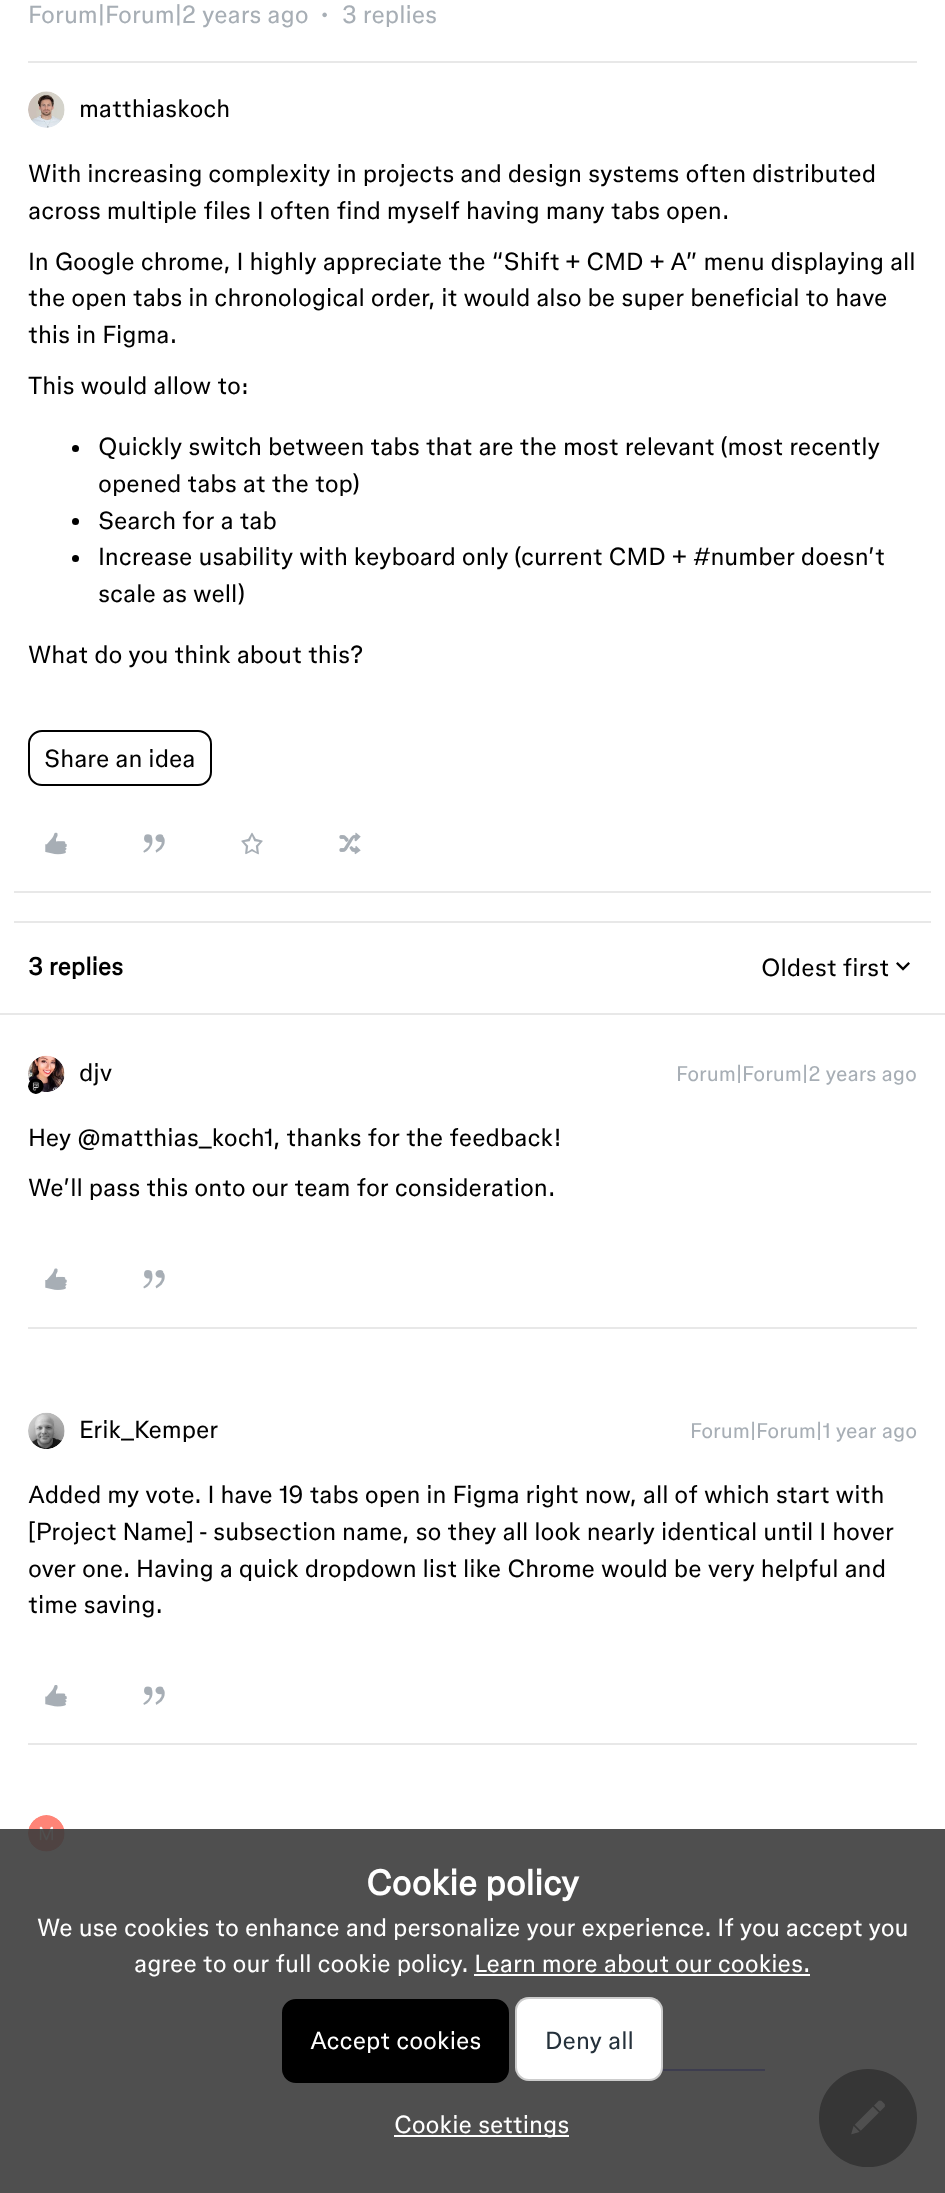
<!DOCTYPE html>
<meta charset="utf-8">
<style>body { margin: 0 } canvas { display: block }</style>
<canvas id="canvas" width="945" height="2193"></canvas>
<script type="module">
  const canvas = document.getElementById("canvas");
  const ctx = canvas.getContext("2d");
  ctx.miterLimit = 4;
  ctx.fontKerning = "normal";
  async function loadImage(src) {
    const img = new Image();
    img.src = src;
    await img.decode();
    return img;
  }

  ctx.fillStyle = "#ffffff";
  ctx.fillRect(0, 0, 945, 2193);
  ctx.fillStyle = "#e8e8e8";
  ctx.fillRect(14, 891, 917, 2);
  ctx.font = "24.5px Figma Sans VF";
  ctx.fillStyle = "#a7aeb5";
  ctx.fillText("Forum|Forum|2 years ago", 28, 23);
  ctx.drawImage(await loadImage("img1.png"), 322, 12, 5, 6);
  ctx.fillText("3 replies", 342, 23);
  ctx.fillStyle = "#e8e8e8";
  ctx.fillRect(28, 61, 889, 2);
  ctx.drawImage(await loadImage("img2.png"), 28, 91, 37, 37);
  ctx.fillStyle = "#000000";
  ctx.fillText("matthiaskoch", 79, 117);
  ctx.fillText("With increasing complexity in projects and design systems often distributed", 28, 182);
  ctx.fillText("across multiple files I often find myself having many tabs open.", 28, 219);
  ctx.fillText("In Google chrome, I highly appreciate the “Shift + CMD + A” menu displaying all", 28, 270);
  ctx.fillText("the open tabs in chronological order, it would also be super beneficial to have", 28, 306);
  ctx.fillText("this in Figma.", 28, 343);
  ctx.fillText("This would allow to:", 28, 394);
  ctx.beginPath();
  ctx.arc(75.5, 448.5, 3.5, 0, Math.PI * 2);
  ctx.fill();
  ctx.fillText("Quickly switch between tabs that are the most relevant (most recently", 98, 455);
  ctx.fillText("opened tabs at the top)", 98, 492);
  ctx.beginPath();
  ctx.arc(75.5, 521.5, 3.5, 0, Math.PI * 2);
  ctx.fill();
  ctx.fillText("Search for a tab", 98, 529);
  ctx.beginPath();
  ctx.arc(75.5, 558.5, 3.5, 0, Math.PI * 2);
  ctx.fill();
  ctx.fillText("Increase usability with keyboard only (current CMD + #number doesn’t", 98, 565);
  ctx.fillText("scale as well)", 98, 602);
  ctx.fillText("What do you think about this?", 28, 663);
  ctx.beginPath();
  ctx.roundRect(29, 731, 182, 54, 13);
  ctx.strokeStyle = "#000000";
  ctx.lineWidth = 2;
  ctx.stroke();
  ctx.fillText("Share an idea", 44, 767);
  ctx.drawImage(await loadImage("img3.png"), 45, 832, 22, 23);
  ctx.drawImage(await loadImage("img4.png"), 143, 834, 22, 19);
  ctx.drawImage(await loadImage("img5.png"), 241, 832, 22, 23);
  ctx.drawImage(await loadImage("img6.png"), 339, 832, 22, 23);
  ctx.fillStyle = "#e8e8e8";
  ctx.fillRect(14, 921, 917, 2);
  ctx.fillRect(0, 1013, 945, 2);
  ctx.font = "bold 24.5px Figma Sans VF";
  ctx.fillStyle = "#000000";
  ctx.fillText("3 replies", 28, 975);
  ctx.font = "24.5px Figma Sans VF";
  ctx.fillText("Oldest first", 761, 976);
  ctx.drawImage(await loadImage("img7.png"), 896, 962, 14, 9);
  ctx.drawImage(await loadImage("img8.png"), 28, 1055, 37, 37);
  ctx.drawImage(await loadImage("img9.png"), 28, 1078, 16, 16);
  ctx.fillText("djv", 79, 1081);
  ctx.font = "21px 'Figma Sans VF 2'";
  ctx.fillStyle = "#a7aeb5";
  ctx.fillText("Forum|Forum|2 years ago", 676, 1081);
  ctx.font = "24.5px Figma Sans VF";
  ctx.fillStyle = "#000000";
  ctx.fillText("Hey @matthias_koch1, thanks for the feedback!", 28, 1146);
  ctx.fillText("We’ll pass this onto our team for consideration.", 28, 1196);
  ctx.drawImage(await loadImage("img10.png"), 45, 1268, 22, 22);
  ctx.drawImage(await loadImage("img11.png"), 143, 1270, 22, 19);
  ctx.fillStyle = "#e8e8e8";
  ctx.fillRect(28, 1327, 889, 2);
  ctx.drawImage(await loadImage("img12.png"), 28, 1412, 37, 37);
  ctx.fillStyle = "#000000";
  ctx.fillText("Erik_Kemper", 79, 1438);
  ctx.font = "21px 'Figma Sans VF 2'";
  ctx.fillStyle = "#a7aeb5";
  ctx.fillText("Forum|Forum|1 year ago", 690, 1438);
  ctx.font = "24.5px Figma Sans VF";
  ctx.fillStyle = "#000000";
  ctx.fillText("Added my vote. I have 19 tabs open in Figma right now, all of which start with", 28, 1503);
  ctx.fillText("[Project Name] - subsection name, so they all look nearly identical until I hover", 28, 1540);
  ctx.fillText("over one. Having a quick dropdown list like Chrome would be very helpful and", 28, 1577);
  ctx.fillText("time saving.", 28, 1613);
  ctx.drawImage(await loadImage("img13.png"), 45, 1685, 22, 22);
  ctx.drawImage(await loadImage("img14.png"), 143, 1686, 22, 19);
  ctx.fillStyle = "#e8e8e8";
  ctx.fillRect(28, 1743, 889, 2);
  ctx.drawImage(await loadImage("img15.png"), 28, 1815, 37, 37);
  ctx.fillStyle = "#4d49fc";
  ctx.fillRect(662, 2069, 103, 2);
  ctx.fillStyle = "#000000";
  ctx.beginPath();
  ctx.arc(868, 2118, 48, 0, Math.PI * 2);
  ctx.fill();
  ctx.stroke();
  ctx.drawImage(await loadImage("img16.png"), 851, 2100, 34, 35);
  ctx.fillStyle = "rgba(60, 60, 60, 0.9)";
  ctx.fillRect(0, 1829, 945, 364);
  ctx.font = "bold 35px 'Figma Sans VF 2'";
  ctx.fillStyle = "#ffffff";
  ctx.fillText("Cookie policy", 366, 1895);
  ctx.font = "24.5px Figma Sans VF";
  ctx.fillText("We use cookies to enhance and personalize your experience. If you accept you", 37, 1936);
  ctx.fillText("agree to our full cookie policy. Learn more about our cookies.", 134, 1972);
  ctx.fillRect(474, 1974, 336, 2);
  ctx.fillStyle = "#000000";
  ctx.beginPath();
  ctx.roundRect(283, 2000, 225, 82, 13);
  ctx.fill();
  ctx.stroke();
  ctx.fillStyle = "#ffffff";
  ctx.fillText("Accept cookies", 310, 2049);
  ctx.beginPath();
  ctx.roundRect(515, 1997, 148, 84, 14);
  ctx.fill();
  ctx.beginPath();
  ctx.roundRect(516, 1998, 146, 82, 13);
  ctx.strokeStyle = "rgba(0, 0, 0, 0.2)";
  ctx.stroke();
  ctx.fillStyle = "#25313b";
  ctx.fillText("Deny all", 545, 2049);
  ctx.fillStyle = "#ffffff";
  ctx.fillRect(394, 2135, 175, 2);
  ctx.fillText("Cookie settings", 394, 2133);
</script>
